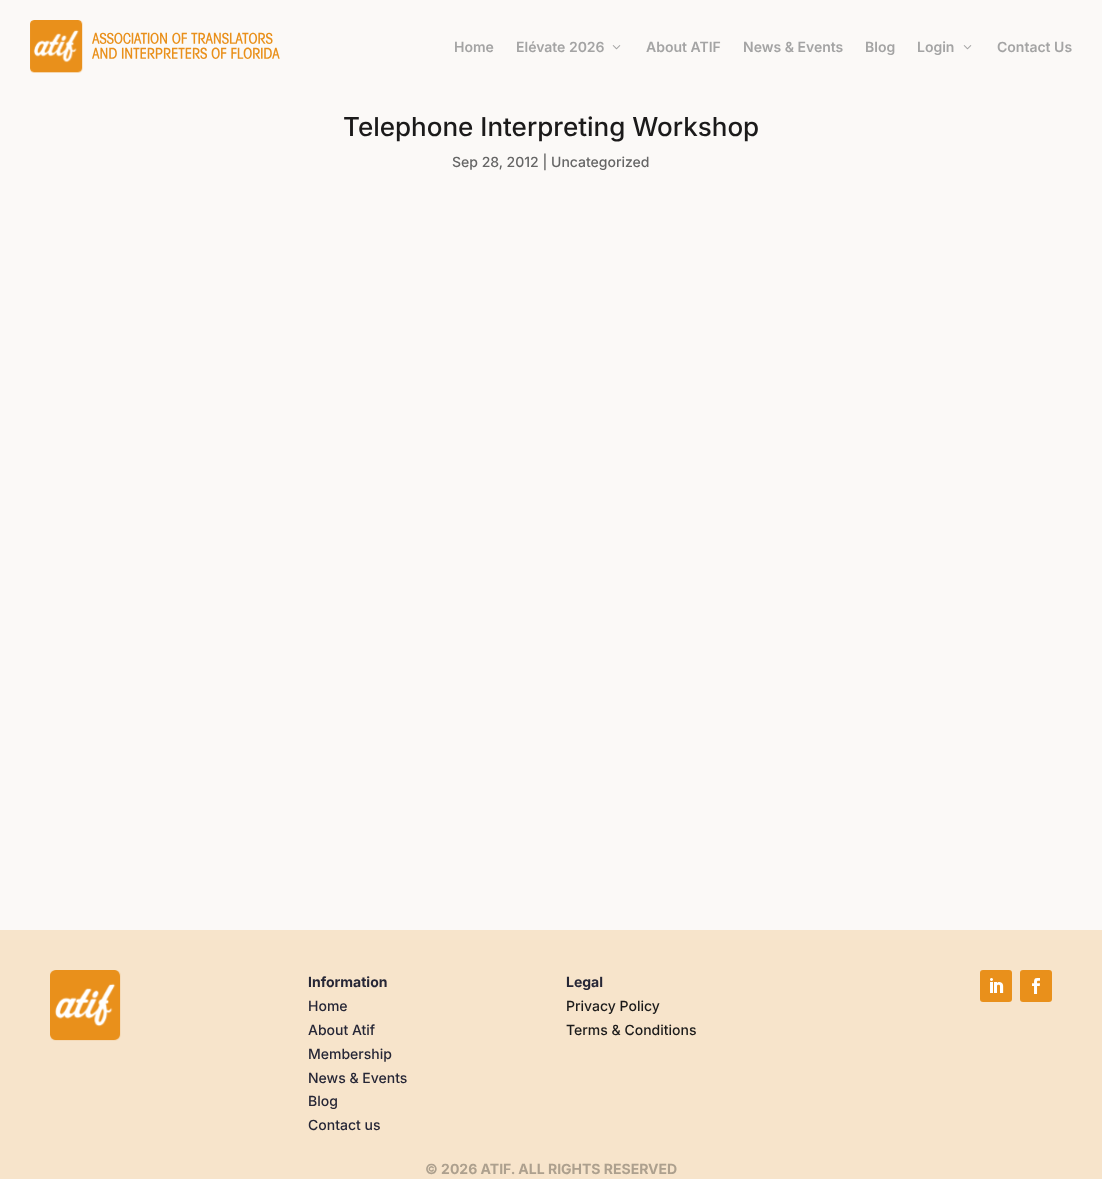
<!DOCTYPE html>
<meta charset="utf-8">
<style>body { margin: 0 } canvas { display: block }</style>
<canvas id="canvas" width="1102" height="1179"></canvas>
<script type="module">
  const canvas = document.getElementById("canvas");
  const ctx = canvas.getContext("2d");
  ctx.miterLimit = 4;
  ctx.fontKerning = "normal";
  async function loadImage(src) {
    const img = new Image();
    img.src = src;
    await img.decode();
    return img;
  }

  ctx.fillStyle = "#fbf9f7";
  ctx.fillRect(0, 0, 1102, 1179);
  ctx.drawImage(await loadImage("img1.png"), 30, 20, 250, 53);
  ctx.font = "600 14px Inter";
  ctx.fillStyle = "#a4a4a4";
  ctx.fillText("Home", 454, 52);
  ctx.fillText("Elévate 2026", 516, 52);
  ctx.drawImage(await loadImage("img2.png"), 612, 45, 9, 5);
  ctx.fillText("About ATIF", 646, 52);
  ctx.fillText("News & Events", 743, 52);
  ctx.fillText("Blog", 865, 52);
  ctx.fillText("Login", 917, 52);
  ctx.drawImage(await loadImage("img2.png"), 963, 45, 9, 5);
  ctx.fillText("Contact Us", 997, 52);
  ctx.font = "500 26px Inter";
  ctx.fillStyle = "#1b1a1a";
  ctx.fillText("Telephone Interpreting Workshop", 343, 136);
  ctx.font = "500 14px Inter";
  ctx.fillStyle = "#666666";
  ctx.fillText("Sep 28, 2012 | Uncategorized", 452, 167);
  ctx.fillStyle = "#f7e4cb";
  ctx.fillRect(0, 930, 1102, 249);
  ctx.drawImage(await loadImage("img3.png"), 50, 970, 71, 71);
  ctx.font = "bold 14px Inter";
  ctx.fillStyle = "#262636";
  ctx.fillText("Information", 308, 987);
  ctx.font = "500 14px Inter";
  ctx.fillText("Home", 308, 1011);
  ctx.fillText("About Atif", 308, 1035);
  ctx.fillText("Membership", 308, 1059);
  ctx.fillText("News & Events", 308, 1083);
  ctx.fillText("Blog", 308, 1106);
  ctx.fillText("Contact us", 308, 1130);
  ctx.font = "bold 14px Inter";
  ctx.fillText("Legal", 566, 987);
  ctx.font = "500 14px Inter";
  ctx.fillStyle = "#1b1a1a";
  ctx.fillText("Privacy Policy", 566, 1011);
  ctx.fillText("Terms & Conditions", 566, 1035);
  ctx.fillStyle = "#e9901b";
  ctx.beginPath();
  ctx.roundRect(980, 970, 32, 32, 3);
  ctx.fill();
  ctx.drawImage(await loadImage("img4.png"), 990, 978, 14, 15);
  ctx.beginPath();
  ctx.roundRect(1020, 970, 32, 32, 3);
  ctx.fill();
  ctx.drawImage(await loadImage("img5.png"), 1032, 978, 8, 16);
  ctx.font = "bold 14px Inter";
  ctx.fillStyle = "#ada08e";
  ctx.fillText("© 2026 ATIF. ALL RIGHTS RESERVED", 425, 1174);
</script>
